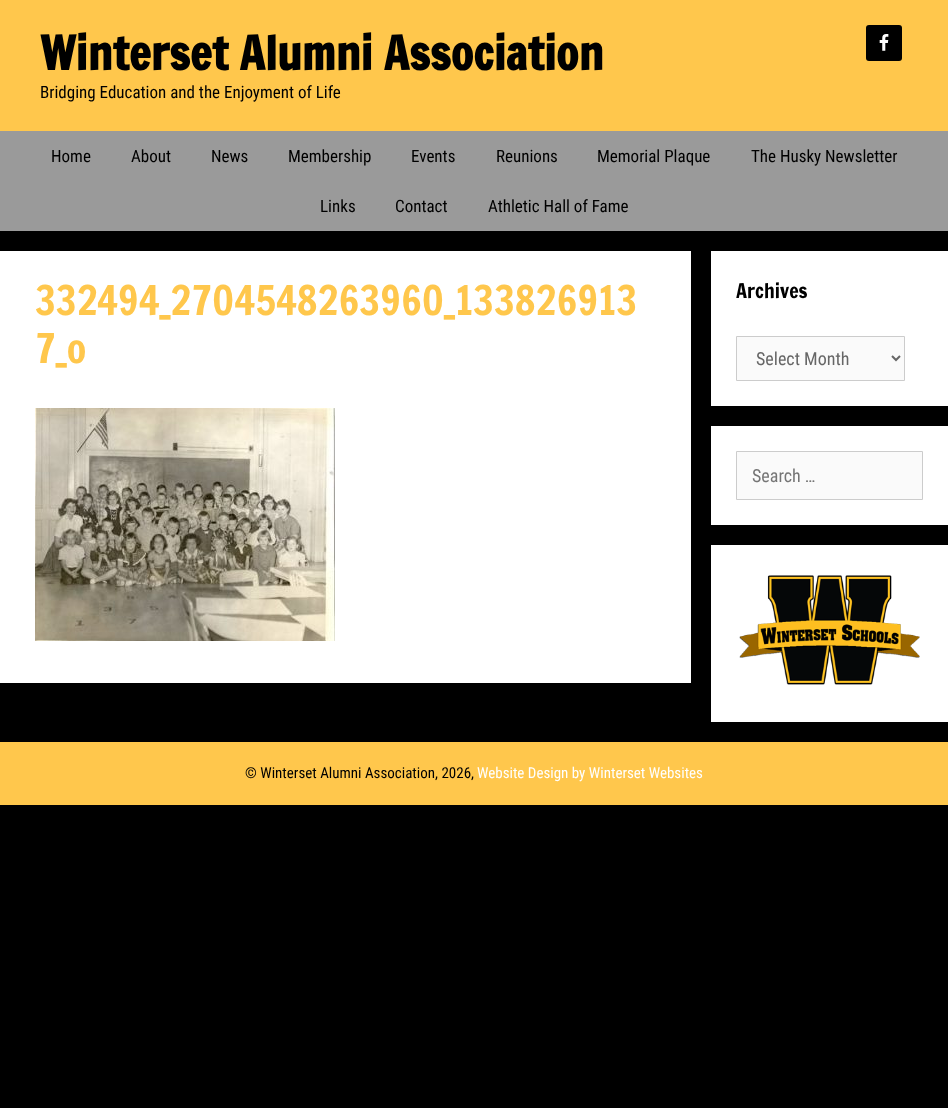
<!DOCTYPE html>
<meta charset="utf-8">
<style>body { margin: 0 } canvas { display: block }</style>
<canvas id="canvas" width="948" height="1108"></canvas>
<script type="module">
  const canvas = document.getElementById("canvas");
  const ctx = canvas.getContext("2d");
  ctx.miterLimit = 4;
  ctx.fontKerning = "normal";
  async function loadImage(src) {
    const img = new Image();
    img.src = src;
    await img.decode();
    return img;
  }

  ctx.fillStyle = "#000000";
  ctx.fillRect(0, 0, 948, 1108);
  ctx.fillStyle = "#ffc74c";
  ctx.fillRect(0, 0, 948, 131);
  ctx.font = "bold 46px Francois One";
  ctx.fillStyle = "#000000";
  ctx.fillText("Winterset Alumni Association", 40, 70);
  ctx.font = "17px Roboto Condensed";
  ctx.fillText("Bridging Education and the Enjoyment of Life", 40, 98);
  ctx.beginPath();
  ctx.roundRect(866, 25, 36, 36, 3);
  ctx.fill();
  ctx.drawImage(await loadImage("img1.png"), 879, 34, 10, 17);
  ctx.fillStyle = "#9a9a9a";
  ctx.fillRect(0, 131, 948, 100);
  ctx.fillStyle = "#000000";
  ctx.fillText("Home", 51, 162);
  ctx.fillText("About", 131, 162);
  ctx.fillText("News", 211, 162);
  ctx.fillText("Membership", 288, 162);
  ctx.fillText("Events", 411, 162);
  ctx.fillText("Reunions", 496, 162);
  ctx.fillText("Memorial Plaque", 597, 162);
  ctx.fillText("The Husky Newsletter", 751, 162);
  ctx.fillText("Links", 320, 212);
  ctx.fillText("Contact", 395, 212);
  ctx.fillText("Athletic Hall of Fame", 488, 212);
  ctx.fillStyle = "#ffffff";
  ctx.fillRect(0, 251, 691, 432);
  ctx.font = "40px Francois One";
  ctx.fillStyle = "#ffc74c";
  ctx.fillText("332494_2704548263960_133826913", 35, 315);
  ctx.fillText("7_o", 35, 363);
  ctx.drawImage(await loadImage("img2.png"), 35, 408, 300, 233);
  ctx.fillStyle = "#ffffff";
  ctx.fillRect(711, 251, 237, 155);
  ctx.font = "20px Francois One";
  ctx.fillStyle = "#000000";
  ctx.fillText("Archives", 736, 298);
  ctx.fillStyle = "#fafafa";
  ctx.beginPath();
  ctx.rect(736.5, 336.5, 168, 44);
  ctx.fill();
  ctx.strokeStyle = "#cccccc";
  ctx.stroke();
  ctx.beginPath();
  ctx.moveTo(892, 356);
  ctx.lineTo(896, 360);
  ctx.lineTo(900, 356);
  ctx.strokeStyle = "#666666";
  ctx.lineWidth = 2;
  ctx.stroke();
  ctx.font = "18px Roboto Condensed";
  ctx.fillStyle = "#666666";
  ctx.fillText("Select Month", 756, 365);
  ctx.fillStyle = "#ffffff";
  ctx.fillRect(711, 426, 237, 99);
  ctx.fillStyle = "#fafafa";
  ctx.beginPath();
  ctx.rect(736.5, 451.5, 186, 48);
  ctx.fill();
  ctx.strokeStyle = "#cccccc";
  ctx.lineWidth = 1;
  ctx.stroke();
  ctx.fillStyle = "#757575";
  ctx.fillText("Search …", 752, 482);
  ctx.fillStyle = "#ffffff";
  ctx.fillRect(711, 545, 237, 177);
  ctx.drawImage(await loadImage("img3.png"), 739, 575, 181, 110);
  ctx.fillStyle = "#ffc74c";
  ctx.fillRect(0, 742, 948, 63);
  ctx.font = "15px Roboto Condensed";
  ctx.fillStyle = "#000000";
  ctx.fillText("© Winterset Alumni Association, 2026,", 245, 778);
  ctx.fillStyle = "#ffffff";
  ctx.fillText("Website Design by Winterset Websites", 477, 778);
</script>
